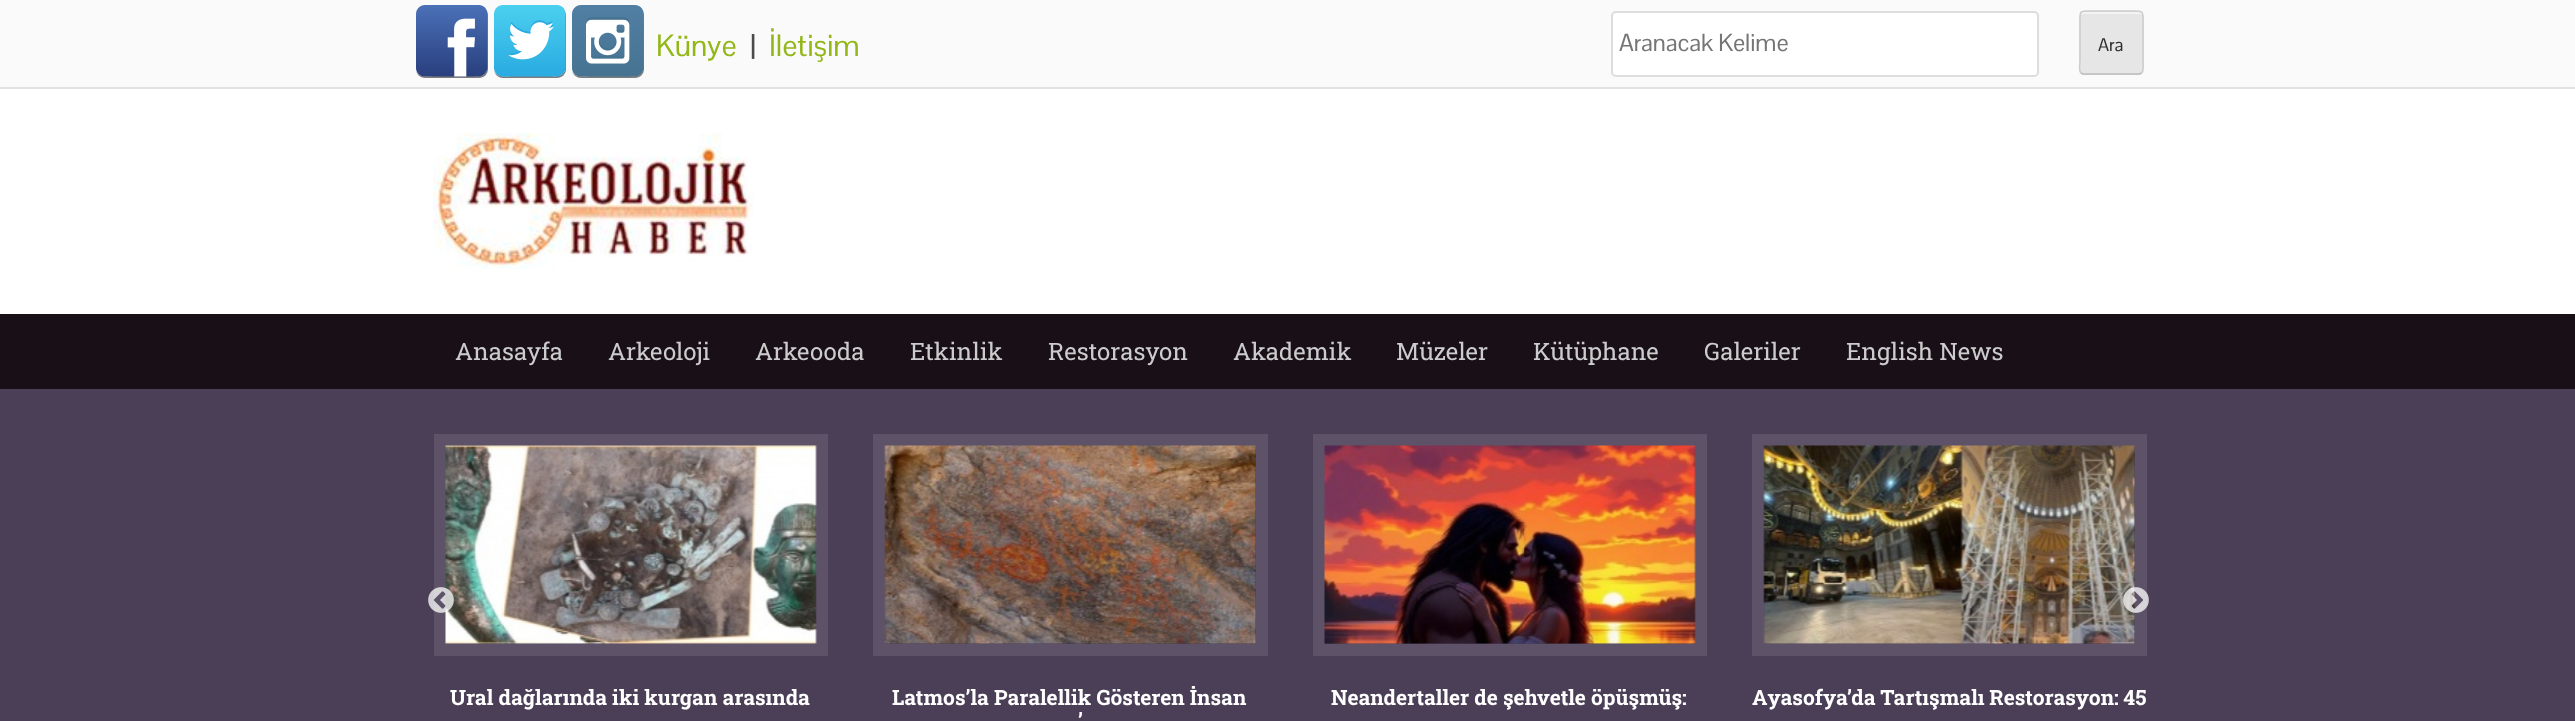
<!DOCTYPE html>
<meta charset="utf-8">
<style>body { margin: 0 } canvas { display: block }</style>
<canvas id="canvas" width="2575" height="721"></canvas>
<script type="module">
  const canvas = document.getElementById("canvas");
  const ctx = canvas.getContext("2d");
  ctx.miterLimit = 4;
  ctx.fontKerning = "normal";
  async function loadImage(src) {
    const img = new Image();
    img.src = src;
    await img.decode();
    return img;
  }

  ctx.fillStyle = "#ffffff";
  ctx.fillRect(0, 0, 2575, 721);
  ctx.fillStyle = "#fafafa";
  ctx.fillRect(0, 0, 2575, 87);
  ctx.fillStyle = "#e2e2e2";
  ctx.fillRect(0, 87, 2575, 2);
  ctx.fillStyle = "#7d7d7d";
  ctx.beginPath();
  ctx.moveTo(416, 71);
  ctx.bezierCurveTo(417, 75, 421, 78, 425, 78);
  ctx.lineTo(479, 78);
  ctx.bezierCurveTo(484, 78, 488, 74, 488, 69);
  ctx.lineTo(488, 15);
  ctx.lineTo(487, 11);
  ctx.lineTo(487, 69);
  ctx.bezierCurveTo(486, 78, 476, 76, 470, 76);
  ctx.lineTo(434, 76);
  ctx.bezierCurveTo(427, 76, 419, 78, 416, 71);
  ctx.closePath();
  ctx.fill();
  ctx.drawImage(await loadImage("img1.png"), 416, 5, 72, 72);
  ctx.beginPath();
  ctx.moveTo(494, 71);
  ctx.bezierCurveTo(495, 75, 499, 78, 503, 78);
  ctx.lineTo(557, 78);
  ctx.bezierCurveTo(562, 78, 566, 74, 566, 69);
  ctx.lineTo(566, 15);
  ctx.lineTo(565, 11);
  ctx.lineTo(565, 69);
  ctx.bezierCurveTo(564, 78, 554, 76, 548, 76);
  ctx.lineTo(512, 76);
  ctx.bezierCurveTo(505, 76, 497, 78, 494, 71);
  ctx.closePath();
  ctx.fill();
  ctx.drawImage(await loadImage("img2.png"), 494, 5, 72, 72);
  ctx.beginPath();
  ctx.moveTo(572, 71);
  ctx.bezierCurveTo(573, 75, 577, 78, 581, 78);
  ctx.lineTo(635, 78);
  ctx.bezierCurveTo(640, 78, 644, 74, 644, 69);
  ctx.lineTo(644, 15);
  ctx.lineTo(643, 11);
  ctx.lineTo(643, 69);
  ctx.bezierCurveTo(642, 78, 632, 76, 626, 76);
  ctx.lineTo(590, 76);
  ctx.bezierCurveTo(583, 76, 575, 78, 572, 71);
  ctx.closePath();
  ctx.fill();
  ctx.drawImage(await loadImage("img3.png"), 572, 5, 72, 72);
  ctx.font = "30px Pontano Sans";
  ctx.fillStyle = "#92b717";
  ctx.fillText("Künye", 656, 56);
  ctx.fillStyle = "#4a4a4a";
  ctx.fillText("|", 750, 56);
  ctx.fillStyle = "#92b717";
  ctx.fillText("İletişim", 769, 56);
  ctx.fillStyle = "#ffffff";
  ctx.beginPath();
  ctx.roundRect(1612, 12, 426, 64, 4);
  ctx.fill();
  ctx.strokeStyle = "#dddddd";
  ctx.lineWidth = 2;
  ctx.stroke();
  ctx.font = "24px Pontano Sans";
  ctx.fillStyle = "#757575";
  ctx.fillText("Aranacak Kelime", 1619, 51);
  ctx.fillStyle = "#e6e6e6";
  ctx.beginPath();
  ctx.roundRect(2079, 11, 65, 64, 5);
  ctx.fill();
  ctx.fillStyle = "#f3f3f3";
  ctx.beginPath();
  ctx.moveTo(2084, 14);
  ctx.lineTo(2139, 14);
  ctx.bezierCurveTo(2141, 14, 2142, 15, 2142, 16);
  ctx.lineTo(2142, 15);
  ctx.bezierCurveTo(2142, 13, 2141, 12, 2139, 12);
  ctx.lineTo(2084, 12);
  ctx.bezierCurveTo(2082, 12, 2081, 13, 2081, 15);
  ctx.closePath();
  ctx.fill();
  ctx.beginPath();
  ctx.moveTo(2141.5, 73);
  ctx.lineTo(2139.5, 74);
  ctx.lineTo(2083, 74);
  ctx.lineTo(2081, 73);
  ctx.strokeStyle = "#bbbbbb";
  ctx.lineWidth = 1.5;
  ctx.stroke();
  ctx.beginPath();
  ctx.moveTo(2081, 73);
  ctx.bezierCurveTo(2078.5, 70.5, 2080, 62, 2080, 61);
  ctx.lineTo(2080, 24);
  ctx.bezierCurveTo(2080, 10, 2078.5, 11, 2093, 11);
  ctx.lineTo(2130, 11);
  ctx.bezierCurveTo(2144, 11, 2143, 10, 2143, 24);
  ctx.lineTo(2143, 61);
  ctx.bezierCurveTo(2143, 62, 2144, 70.5, 2141.5, 73);
  ctx.strokeStyle = "#cccccc";
  ctx.stroke();
  ctx.font = "18px Pontano Sans";
  ctx.fillStyle = "#2e2e2e";
  ctx.fillText("Ara", 2098, 51);
  ctx.drawImage(await loadImage("img4.png"), 433, 133, 321, 136);
  ctx.fillStyle = "#190f17";
  ctx.fillRect(0, 314, 2575, 75);
  ctx.font = "24px Roboto Slab";
  ctx.fillStyle = "#cccccc";
  ctx.fillText("Anasayfa", 455, 360);
  ctx.fillText("Arkeoloji", 608, 360);
  ctx.fillText("Arkeooda", 755, 360);
  ctx.fillText("Etkinlik", 910, 360);
  ctx.fillText("Restorasyon", 1048, 360);
  ctx.fillText("Akademik", 1233, 360);
  ctx.fillText("Müzeler", 1396, 360);
  ctx.fillText("Kütüphane", 1533, 360);
  ctx.fillText("Galeriler", 1704, 360);
  ctx.fillText("English News", 1846, 360);
  ctx.fillStyle = "#4b3f57";
  ctx.fillRect(0, 389, 2575, 332);
  ctx.strokeStyle = "#5d5268";
  ctx.lineWidth = 12;
  ctx.strokeRect(440, 440, 382, 210);
  ctx.drawImage(await loadImage("img7.png"), 445, 445, 372, 199);
  ctx.drawImage(await loadImage("img5.png"), 428, 587, 26, 26);
  ctx.strokeRect(1758, 440, 383, 210);
  ctx.drawImage(await loadImage("img10.png"), 1763, 445, 372, 199);
  ctx.drawImage(await loadImage("img6.png"), 2123, 587, 26, 26);
  ctx.font = "bold 21px Roboto Slab";
  ctx.fillStyle = "#ffffff";
  ctx.fillText("Ural dağlarında iki kurgan arasında", 450, 705);
  ctx.strokeRect(879, 440, 383, 210);
  ctx.drawImage(await loadImage("img8.png"), 884, 445, 372, 199);
  ctx.fillText("Latmos’la Paralellik Gösteren İnsan", 892, 705);
  ctx.fillText("’", 1078, 728);
  ctx.strokeRect(1319, 440, 382, 210);
  ctx.drawImage(await loadImage("img9.png"), 1324, 445, 372, 199);
  ctx.fillText("Neandertaller de şehvetle öpüşmüş:", 1331, 705);
  ctx.wordSpacing = "-0.5px";
  ctx.fillText("Ayasofya’da Tartışmalı Restorasyon: 45", 1752, 705);
</script>
